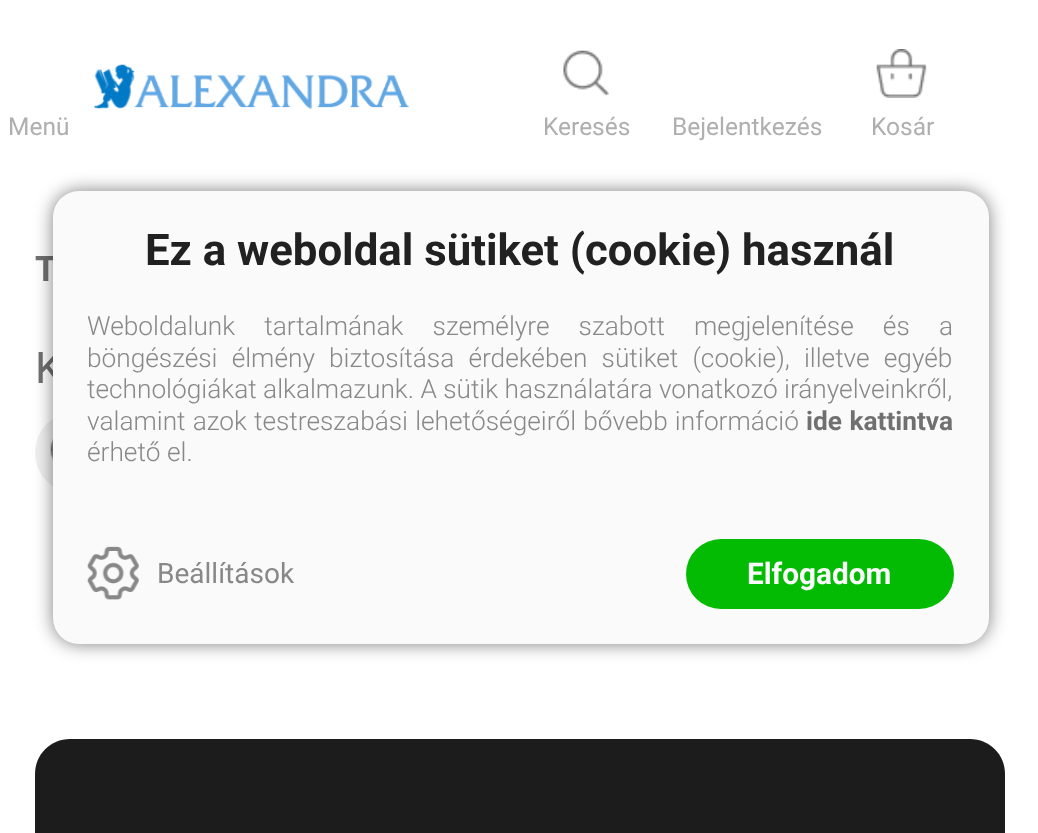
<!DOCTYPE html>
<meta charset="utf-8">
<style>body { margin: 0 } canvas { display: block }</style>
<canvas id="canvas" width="1038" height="833"></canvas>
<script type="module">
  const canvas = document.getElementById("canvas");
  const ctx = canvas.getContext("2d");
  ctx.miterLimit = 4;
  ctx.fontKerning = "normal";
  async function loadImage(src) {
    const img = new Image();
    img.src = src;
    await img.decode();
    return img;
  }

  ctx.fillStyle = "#ffffff";
  ctx.fillRect(0, 0, 1038, 833);
  ctx.drawImage(await loadImage("img1.png"), 94, 64, 316, 46);
  ctx.font = "24.5px Roboto";
  ctx.fillStyle = "#afafaf";
  ctx.fillText("Menü", 8, 135);
  ctx.drawImage(await loadImage("img2.png"), 563, 50, 46, 47);
  ctx.fillText("Keresés", 543, 135);
  ctx.fillText("Bejelentkezés", 672, 135);
  ctx.drawImage(await loadImage("img3.png"), 876, 49, 51, 49);
  ctx.fillText("Kosár", 871, 135);
  ctx.font = "bold 35px Roboto";
  ctx.fillStyle = "#707070";
  ctx.fillText("T", 35, 281);
  ctx.font = "43.75px Roboto";
  ctx.fillText("K", 35, 383);
  ctx.fillStyle = "#efefef";
  ctx.beginPath();
  ctx.roundRect(35, 411, 646, 83, 41.5);
  ctx.fill();
  ctx.drawImage(await loadImage("img4.png"), 50, 438, 3, 23);
  ctx.fillStyle = "#1c1c1c";
  ctx.beginPath();
  ctx.moveTo(70, 739);
  ctx.lineTo(970, 739);
  ctx.bezierCurveTo(989.5, 739, 1005, 754.5, 1005, 774);
  ctx.lineTo(1005, 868);
  ctx.lineTo(35, 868);
  ctx.lineTo(35, 774);
  ctx.bezierCurveTo(35, 754.5, 50.5, 739, 70, 739);
  ctx.closePath();
  ctx.fill();
  ctx.fillStyle = "rgba(0, 0, 0, 0.5)";
  ctx.filter = "blur(9px)";
  ctx.beginPath();
  ctx.roundRect(53, 191, 936, 453, 26);
  ctx.fill();
  ctx.filter = "none";
  ctx.fillStyle = "#fafafa";
  ctx.beginPath();
  ctx.roundRect(53, 191, 936, 453, 26);
  ctx.fill();
  ctx.font = "bold 43.75px Roboto";
  ctx.fillStyle = "#212121";
  ctx.fillText("Ez a weboldal sütiket (cookie) használ", 145, 265);
  ctx.wordSpacing = "22.75px";
  ctx.font = "300 26.25px Roboto";
  ctx.fillStyle = "#888888";
  ctx.fillText("Weboldalunk tartalmának személyre szabott megjelenítése és a", 87, 335);
  ctx.wordSpacing = "7.75px";
  ctx.fillText("böngészési élmény biztosítása érdekében sütiket (cookie), illetve egyéb", 87, 367);
  ctx.wordSpacing = "0px";
  ctx.fillText("technológiákat alkalmazunk. A sütik használatára vonatkozó irányelveinkről,", 87, 398);
  ctx.wordSpacing = "0.75px";
  ctx.fillText("valamint azok testreszabási lehetőségeiről bővebb információ", 87, 430);
  ctx.wordSpacing = "1px";
  ctx.font = "bold 26.25px Roboto";
  ctx.fillStyle = "#707070";
  ctx.fillText("ide kattintva", 806, 430);
  ctx.wordSpacing = "0px";
  ctx.font = "300 26.25px Roboto";
  ctx.fillStyle = "#888888";
  ctx.fillText("érhető el.", 87, 461);
  ctx.drawImage(await loadImage("img5.png"), 87, 546, 52, 54);
  ctx.font = "28px Roboto";
  ctx.fillText("Beállítások", 157, 583);
  ctx.fillStyle = "#02bb02";
  ctx.beginPath();
  ctx.roundRect(686, 539, 268, 70, 35);
  ctx.fill();
  ctx.font = "bold 29.75px Roboto";
  ctx.fillStyle = "#fafafa";
  ctx.fillText("Elfogadom", 747, 584);
</script>
